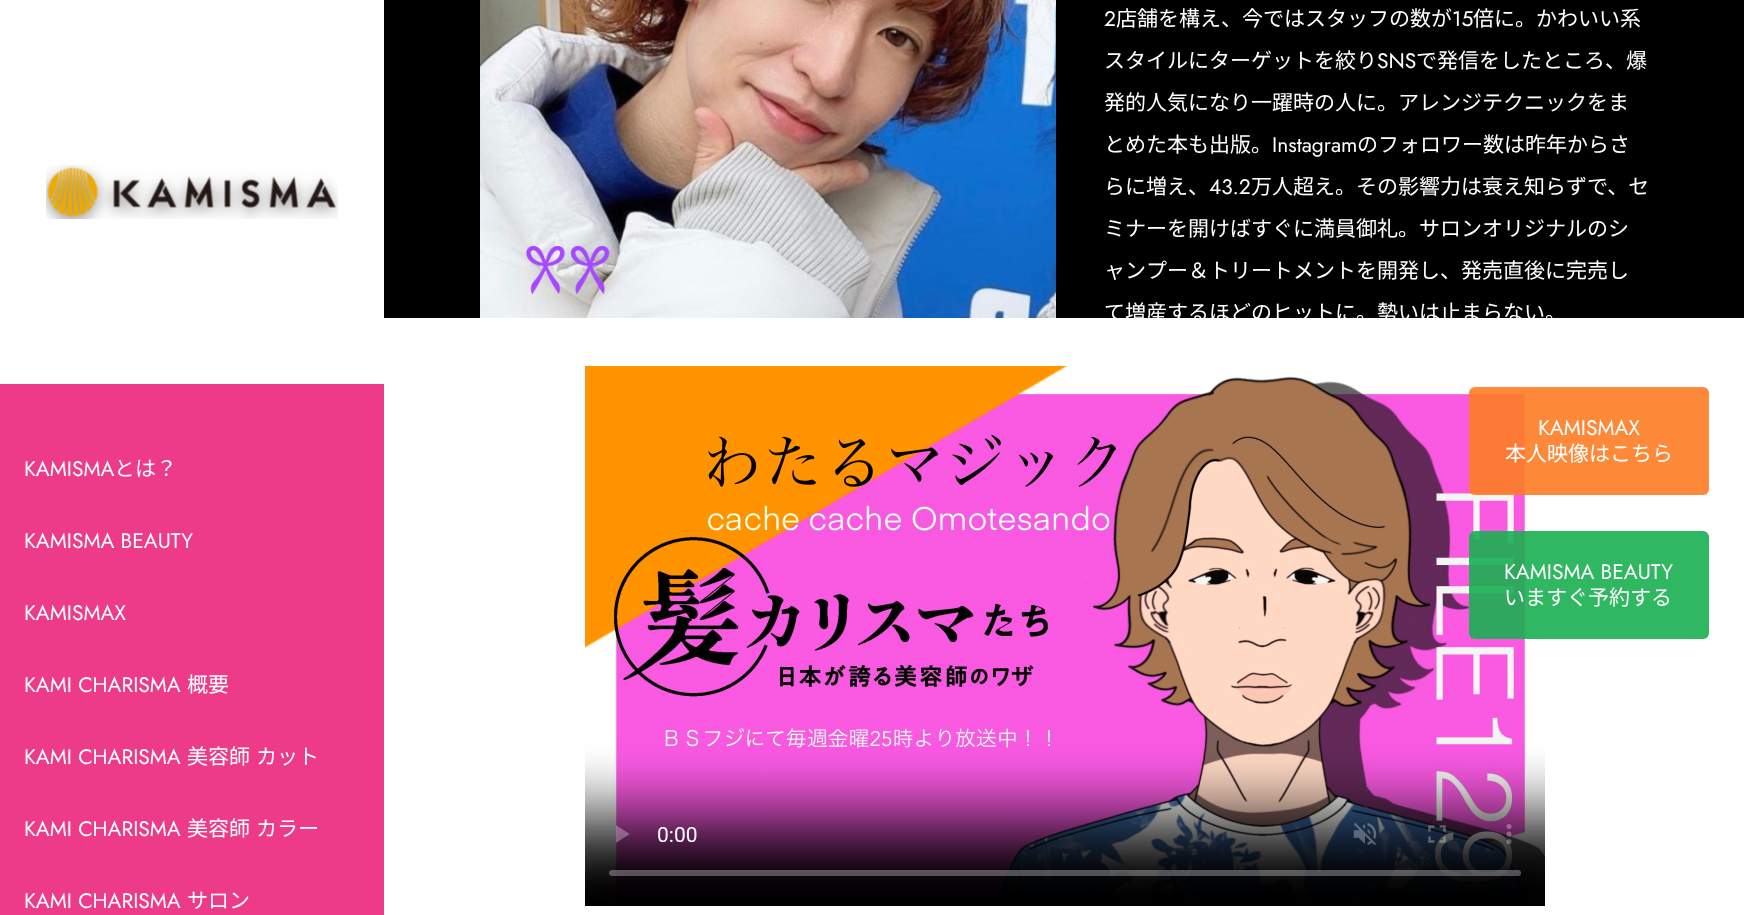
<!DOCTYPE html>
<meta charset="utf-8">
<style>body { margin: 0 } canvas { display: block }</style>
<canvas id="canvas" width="1744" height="915"></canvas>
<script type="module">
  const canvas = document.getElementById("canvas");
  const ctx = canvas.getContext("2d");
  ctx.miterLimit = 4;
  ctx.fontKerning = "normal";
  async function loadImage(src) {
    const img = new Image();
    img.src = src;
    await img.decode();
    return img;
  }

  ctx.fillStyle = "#ffffff";
  ctx.fillRect(0, 0, 1744, 915);
  ctx.fillStyle = "#000000";
  ctx.fillRect(384, 0, 1360, 318);
  ctx.drawImage(await loadImage("img1.png"), 480, 0, 576, 318);
  ctx.font = "21px Jost";
  ctx.fillStyle = "#ffffff";
  ctx.fillText("2", 1104, 26);
  ctx.font = "21px Noto Sans JP";
  ctx.fillText("店舗を構え、今ではスタッフの数が", 1116, 26);
  ctx.font = "21px Jost";
  ctx.fillText("15", 1452, 26);
  ctx.font = "21px Noto Sans JP";
  ctx.fillText("倍に。かわいい系", 1473, 26);
  ctx.fillText("スタイルにターゲットを絞り", 1104, 68);
  ctx.font = "21px Jost";
  ctx.fillText("SNS", 1377, 68);
  ctx.font = "21px Noto Sans JP";
  ctx.fillText("で発信をしたところ、爆", 1416, 68);
  ctx.fillText("発的人気になり一躍時の人に。アレンジテクニックをま", 1104, 110);
  ctx.fillText("とめた本も出版。", 1104, 152);
  ctx.font = "21px Jost";
  ctx.fillText("Instagram", 1272, 152);
  ctx.font = "21px Noto Sans JP";
  ctx.fillText("のフォロワー数は昨年からさ", 1357, 152);
  ctx.fillText("らに増え、", 1104, 194);
  ctx.font = "21px Jost";
  ctx.fillText("43.2", 1209, 194);
  ctx.font = "21px Noto Sans JP";
  ctx.fillText("万人超え。その影響力は衰え知らずで、セ", 1251, 194);
  ctx.fillText("ミナーを開けばすぐに満員御礼。サロンオリジナルのシ", 1104, 236);
  ctx.fillText("ャンプー＆トリートメントを開発し、発売直後に完売し", 1104, 278);
  ctx.fillText("て増産するほどのヒットに。勢いは止まらない。", 1104, 320);
  ctx.drawImage(await loadImage("img2.png"), 526, 246, 84, 48);
  ctx.drawImage(await loadImage("img3.png"), 585, 366, 960, 540);
  ctx.fillStyle = "rgba(253, 124, 35, 0.9)";
  ctx.beginPath();
  ctx.roundRect(1469, 387, 240, 108, 6);
  ctx.fill();
  ctx.font = "21px Jost";
  ctx.fillStyle = "#ffffff";
  ctx.fillText("KAMISMAX", 1538, 435);
  ctx.font = "21px Noto Sans JP";
  ctx.fillText("本人映像はこちら", 1505, 461);
  ctx.fillStyle = "rgba(25, 175, 81, 0.9)";
  ctx.beginPath();
  ctx.roundRect(1469, 531, 240, 108, 6);
  ctx.fill();
  ctx.font = "21px Jost";
  ctx.fillStyle = "#ffffff";
  ctx.fillText("KAMISMA BEAUTY", 1504, 579);
  ctx.font = "21px Noto Sans JP";
  ctx.fillText("いますぐ予約する", 1504, 605);
  ctx.fillStyle = "#ed3b89";
  ctx.fillRect(0, 384, 384, 531);
  ctx.drawImage(await loadImage("img4.png"), 46, 165, 292, 54);
  ctx.font = "21px Jost";
  ctx.fillStyle = "#ffffff";
  ctx.fillText("KAMISMA", 24, 476);
  ctx.font = "21px Noto Sans JP";
  ctx.fillText("とは？", 114, 476);
  ctx.font = "21px Jost";
  ctx.fillText("KAMISMA BEAUTY", 24, 548);
  ctx.fillText("KAMISMAX", 24, 620);
  ctx.fillText("KAMI CHARISMA", 24, 692);
  ctx.font = "21px Noto Sans JP";
  ctx.fillText("概要", 187, 692);
  ctx.font = "21px Jost";
  ctx.fillText("KAMI CHARISMA", 24, 764);
  ctx.font = "21px Noto Sans JP";
  ctx.fillText("美容師", 187, 764);
  ctx.fillText("カット", 256, 764);
  ctx.font = "21px Jost";
  ctx.fillText("KAMI CHARISMA", 24, 836);
  ctx.font = "21px Noto Sans JP";
  ctx.fillText("美容師", 187, 836);
  ctx.fillText("カラー", 256, 836);
  ctx.font = "21px Jost";
  ctx.fillText("KAMI CHARISMA", 24, 908);
  ctx.font = "21px Noto Sans JP";
  ctx.fillText("サロン", 187, 908);
</script>
